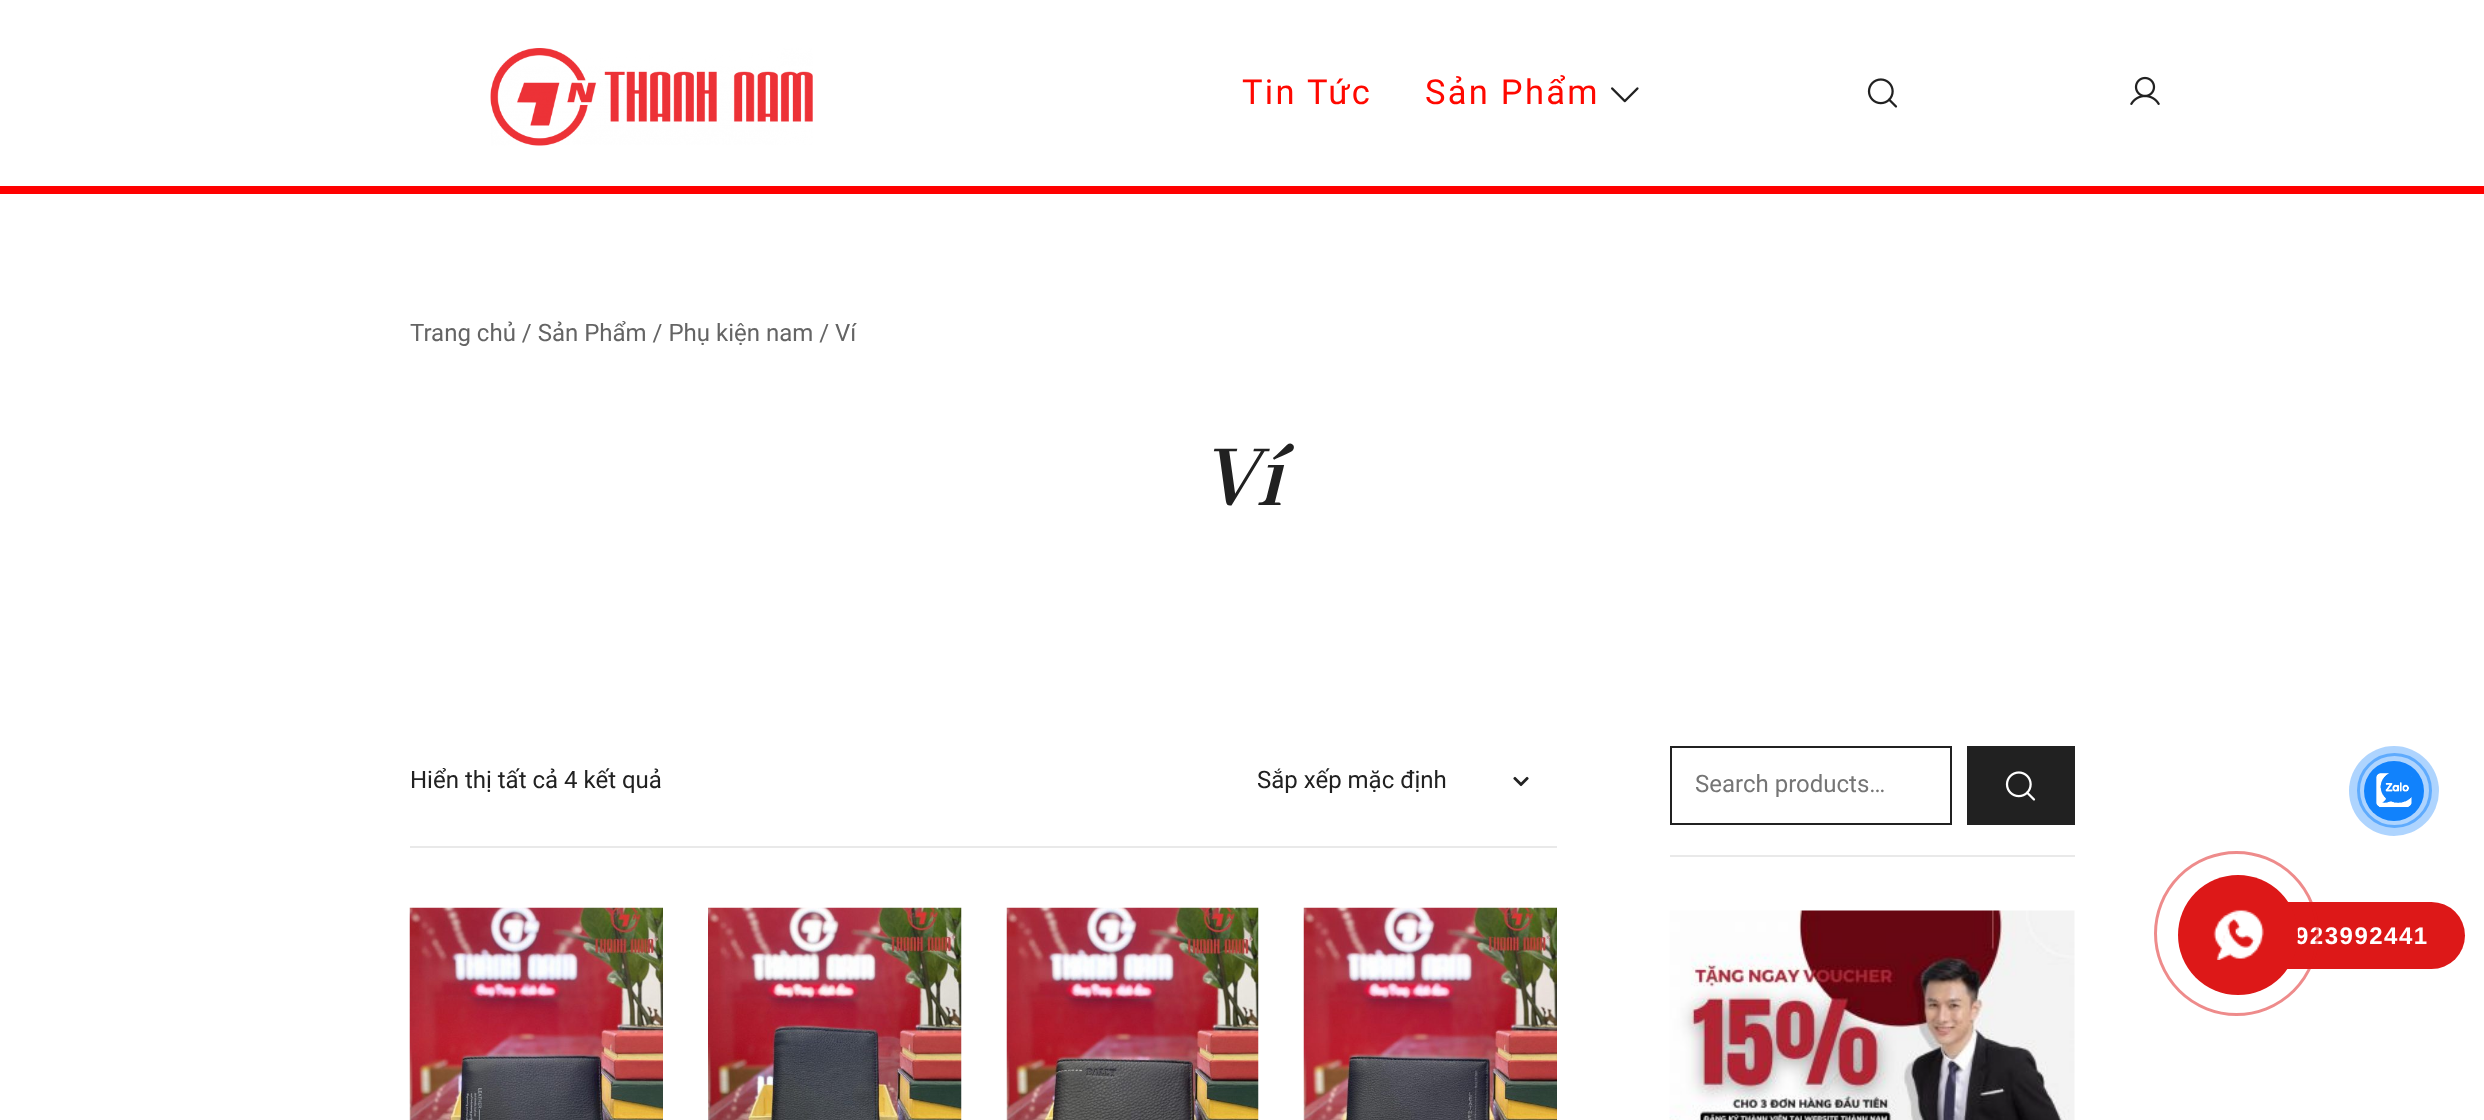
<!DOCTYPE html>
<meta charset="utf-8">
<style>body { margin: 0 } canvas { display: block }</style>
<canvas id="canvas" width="2484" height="1120"></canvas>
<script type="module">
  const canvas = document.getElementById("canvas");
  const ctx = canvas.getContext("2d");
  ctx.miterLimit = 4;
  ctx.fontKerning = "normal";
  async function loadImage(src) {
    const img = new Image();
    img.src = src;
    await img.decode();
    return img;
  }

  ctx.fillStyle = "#ffffff";
  ctx.fillRect(0, 0, 2484, 1120);
  ctx.fillStyle = "#ff0000";
  ctx.fillRect(0, 186, 2484, 8);
  ctx.drawImage(await loadImage("img1.png"), 490, 48, 323, 98);
  ctx.letterSpacing = "2.25px";
  ctx.font = "34.5px Roboto";
  ctx.fillStyle = "#ff0800";
  ctx.fillText("Tin Tức", 1242, 104);
  ctx.fillText("Sản Phẩm", 1425, 104);
  ctx.drawImage(await loadImage("img2.png"), 1611, 87, 28, 16);
  ctx.drawImage(await loadImage("img3.png"), 1867, 78, 31, 30);
  ctx.drawImage(await loadImage("img4.png"), 2130, 76, 30, 29);
  ctx.letterSpacing = "0px";
  ctx.font = "24px Roboto";
  ctx.fillStyle = "#646464";
  ctx.fillText("Trang chủ / Sản Phẩm / Phụ kiện nam / Ví", 410, 341);
  ctx.font = "italic 600 96px Abhaya Libre SemiBold";
  ctx.fillStyle = "#212121";
  ctx.fillText("Ví", 1201, 505);
  ctx.fillStyle = "#e9e9e9";
  ctx.fillRect(410, 846, 1147, 2);
  ctx.font = "24px Roboto";
  ctx.fillStyle = "#212121";
  ctx.fillText("Hiển thị tất cả 4 kết quả", 410, 788);
  ctx.drawImage(await loadImage("img5.png"), 1513, 776, 16, 11);
  ctx.fillText("Sắp xếp mặc định", 1257, 788);
  ctx.drawImage(await loadImage("img6.png"), 409, 907, 254, 213);
  ctx.drawImage(await loadImage("img7.png"), 708, 907, 254, 213);
  ctx.drawImage(await loadImage("img8.png"), 1006, 907, 253, 213);
  ctx.drawImage(await loadImage("img9.png"), 1303, 907, 254, 213);
  ctx.fillStyle = "#e9e9e9";
  ctx.fillRect(1670, 855, 405, 2);
  ctx.strokeStyle = "#212121";
  ctx.lineWidth = 2;
  ctx.strokeRect(1671, 747, 280, 77);
  ctx.fillStyle = "#757575";
  ctx.fillText("Search products…", 1695, 792);
  ctx.fillStyle = "#212121";
  ctx.fillRect(1967, 746, 108, 79);
  ctx.drawImage(await loadImage("img10.png"), 2005, 771, 31, 30);
  ctx.drawImage(await loadImage("img11.png"), 1669, 910, 406, 210);
  ctx.beginPath();
  ctx.arc(2394.5, 790.5, 36, 0, Math.PI * 2);
  ctx.strokeStyle = "#88c1fe";
  ctx.lineWidth = 3;
  ctx.stroke();
  ctx.fillStyle = "rgba(17, 130, 252, 0.34)";
  ctx.beginPath();
  ctx.arc(2394, 791, 45, 0, Math.PI * 2);
  ctx.fill();
  ctx.fillStyle = "#1182fc";
  ctx.beginPath();
  ctx.arc(2394, 791, 30, 0, Math.PI * 2);
  ctx.fill();
  ctx.drawImage(await loadImage("img12.png"), 2376, 773, 36, 35);
  ctx.fillStyle = "#dd1818";
  ctx.beginPath();
  ctx.roundRect(2217, 902, 248, 67, 33.5);
  ctx.fill();
  ctx.letterSpacing = "1.5px";
  ctx.font = "bold 24px Liberation Sans";
  ctx.fillStyle = "#ffffff";
  ctx.fillText("923992441", 2295, 944);
  ctx.beginPath();
  ctx.arc(2236.5, 933.5, 81, 0, Math.PI * 2);
  ctx.strokeStyle = "rgba(221, 24, 24, 0.5)";
  ctx.stroke();
  ctx.fillStyle = "#dd1818";
  ctx.beginPath();
  ctx.arc(2238, 935, 60, 0, Math.PI * 2);
  ctx.fill();
  ctx.drawImage(await loadImage("img13.png"), 2213, 909, 51, 51);
</script>
